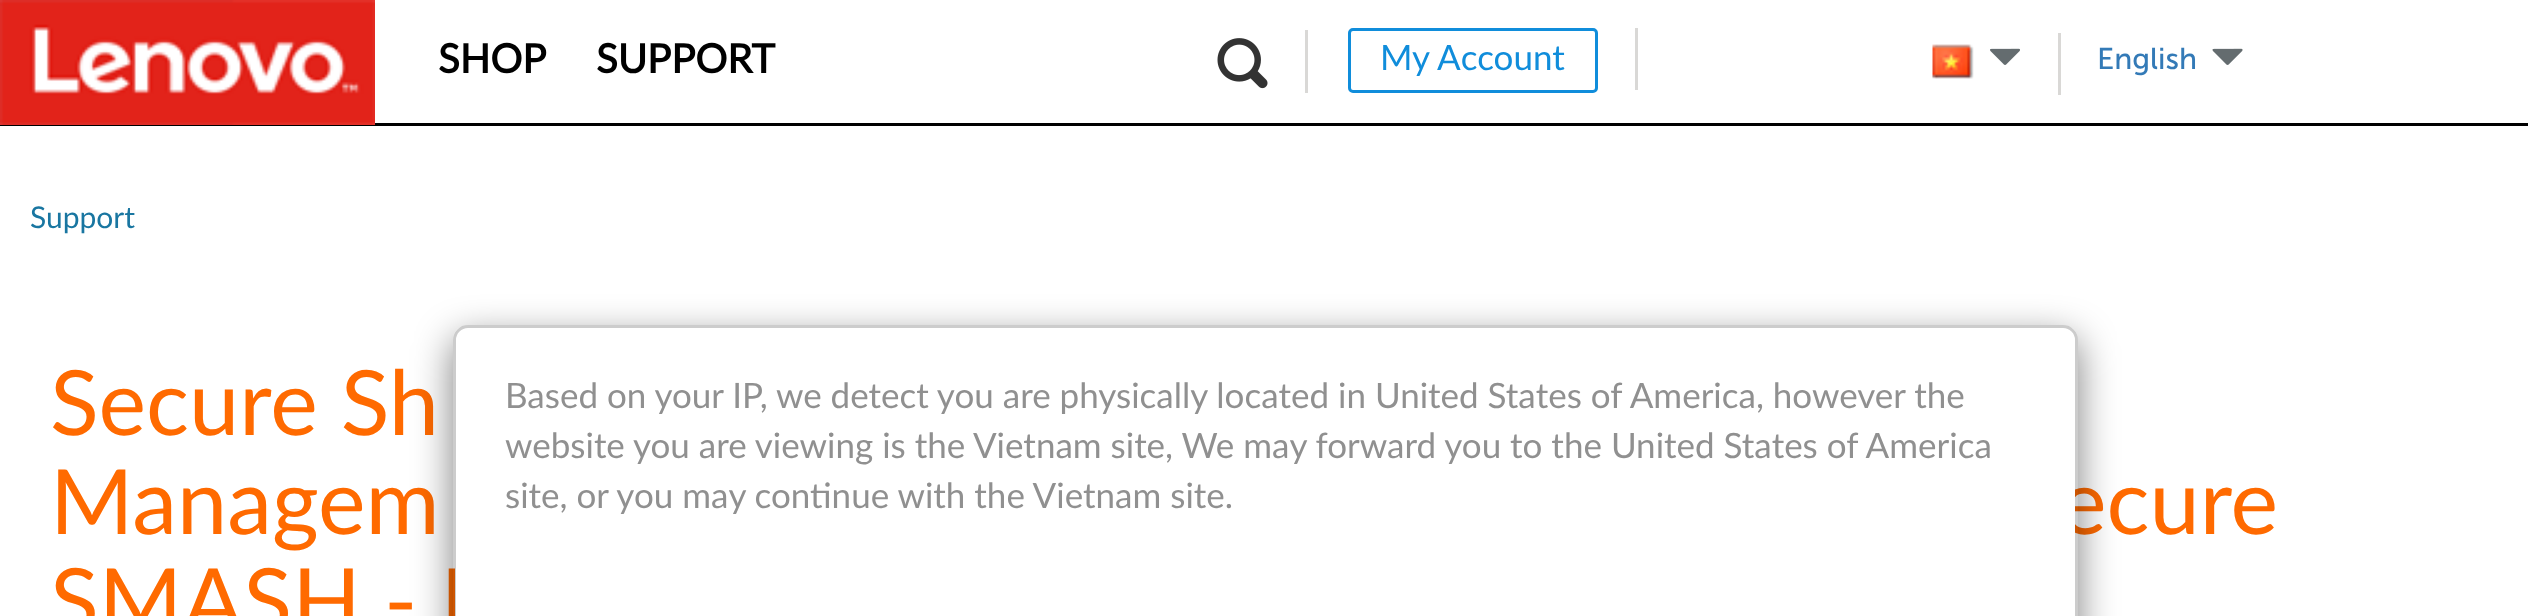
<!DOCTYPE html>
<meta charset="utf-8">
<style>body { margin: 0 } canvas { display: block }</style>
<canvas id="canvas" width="2528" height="616"></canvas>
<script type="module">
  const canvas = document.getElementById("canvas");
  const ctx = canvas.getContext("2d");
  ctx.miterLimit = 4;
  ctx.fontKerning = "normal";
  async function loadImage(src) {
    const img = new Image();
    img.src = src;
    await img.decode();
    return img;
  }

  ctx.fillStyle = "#ffffff";
  ctx.fillRect(0, 0, 2528, 616);
  ctx.fillStyle = "#000000";
  ctx.fillRect(0, 123, 2528, 3);
  ctx.drawImage(await loadImage("img1.png"), 0, 0, 375, 125);
  ctx.font = "bold 40px Lato";
  ctx.fillText("SHOP", 438, 73);
  ctx.fillText("SUPPORT", 596, 73);
  ctx.fillStyle = "#d9d8d6";
  ctx.fillRect(1305, 30, 3, 63);
  ctx.drawImage(await loadImage("img2.png"), 1217, 38, 51, 51);
  ctx.fillRect(1635, 28, 3, 62);
  ctx.beginPath();
  ctx.roundRect(1349.5, 29.5, 247, 62, 3.5);
  ctx.strokeStyle = "#108ddb";
  ctx.lineWidth = 3;
  ctx.stroke();
  ctx.font = "35px Lato";
  ctx.fillStyle = "#108ddb";
  ctx.fillText("My Account", 1380, 70);
  ctx.fillStyle = "#d9d8d6";
  ctx.fillRect(2058, 33, 3, 62);
  ctx.drawImage(await loadImage("img3.png"), 1932, 44, 42, 35);
  ctx.drawImage(await loadImage("img4.png"), 1990, 48, 30, 17);
  ctx.font = "30px Museo Sans";
  ctx.fillStyle = "#337ab7";
  ctx.fillText("English", 2097, 69);
  ctx.drawImage(await loadImage("img5.png"), 2212, 48, 31, 17);
  ctx.font = "30px Lato";
  ctx.fillStyle = "#1976a1";
  ctx.fillText("Support", 30, 228);
  ctx.font = "90px Lato";
  ctx.fillStyle = "#ff6a00";
  ctx.fillText("Secure Sh", 50, 435);
  ctx.fillText("Managem", 50, 534);
  ctx.fillText("ecure", 2059, 534);
  ctx.fillText("SMASH - I", 50, 633);
  ctx.save();
  ctx.beginPath();
  ctx.moveTo(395, 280);
  ctx.lineTo(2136, 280);
  ctx.lineTo(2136, 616);
  ctx.lineTo(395, 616);
  ctx.closePath();
  ctx.moveTo(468, 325);
  ctx.lineTo(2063, 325);
  ctx.bezierCurveTo(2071.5, 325, 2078, 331.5, 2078, 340);
  ctx.lineTo(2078, 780);
  ctx.bezierCurveTo(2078, 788.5, 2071.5, 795, 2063, 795);
  ctx.lineTo(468, 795);
  ctx.bezierCurveTo(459.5, 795, 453, 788.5, 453, 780);
  ctx.lineTo(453, 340);
  ctx.bezierCurveTo(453, 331.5, 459.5, 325, 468, 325);
  ctx.closePath();
  ctx.clip("evenodd");
  ctx.fillStyle = "rgba(0, 0, 0, 0.5)";
  ctx.filter = "blur(19px)";
  ctx.beginPath();
  ctx.roundRect(453, 338, 1625, 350, 15);
  ctx.fill();
  ctx.filter = "none";
  ctx.restore();
  ctx.fillStyle = "#ffffff";
  ctx.beginPath();
  ctx.moveTo(468, 328);
  ctx.lineTo(2062, 328);
  ctx.bezierCurveTo(2069, 328, 2075, 334, 2075, 341);
  ctx.lineTo(2075, 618);
  ctx.lineTo(455, 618);
  ctx.lineTo(455, 341);
  ctx.bezierCurveTo(455, 334, 461, 328, 468, 328);
  ctx.closePath();
  ctx.fill();
  ctx.beginPath();
  ctx.roundRect(454.5, 326.5, 1622, 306, 13.5);
  ctx.strokeStyle = "rgba(0, 0, 0, 0.2)";
  ctx.stroke();
  ctx.font = "35px Lato";
  ctx.fillStyle = "#909090";
  ctx.fillText("Based on your IP, we detect you are physically located in United States of America, however the", 505, 408);
  ctx.fillText("website you are viewing is the Vietnam site, We may forward you to the United States of America", 505, 458);
  ctx.fillText("site, or you may continue with the Vietnam site.", 505, 508);
</script>
